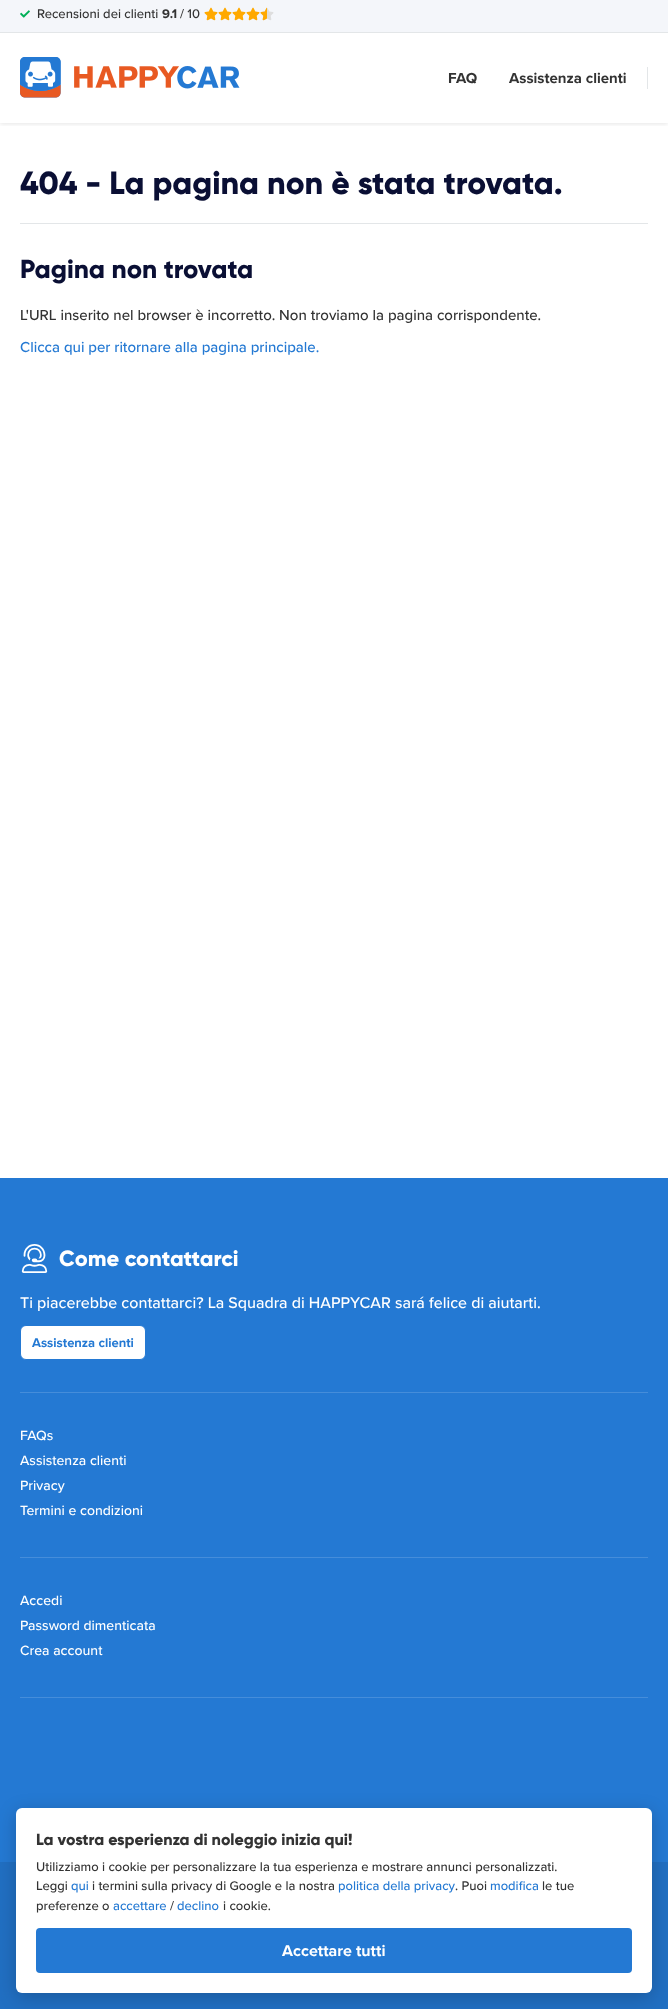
<!DOCTYPE html>
<meta charset="utf-8">
<style>body { margin: 0 } canvas { display: block }</style>
<canvas id="canvas" width="668" height="2009"></canvas>
<script type="module">
  const canvas = document.getElementById("canvas");
  const ctx = canvas.getContext("2d");
  ctx.miterLimit = 4;
  ctx.fontKerning = "normal";
  async function loadImage(src) {
    const img = new Image();
    img.src = src;
    await img.decode();
    return img;
  }

  ctx.fillStyle = "#ffffff";
  ctx.fillRect(0, 0, 668, 2009);
  ctx.save();
  ctx.beginPath();
  ctx.rect(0, 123, 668, 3);
  ctx.clip();
  ctx.fillStyle = "rgba(0, 0, 0, 0.1)";
  ctx.filter = "blur(2.5px)";
  ctx.beginPath();
  ctx.rect(0, 34, 668, 90);
  ctx.fill();
  ctx.filter = "none";
  ctx.restore();
  ctx.fillStyle = "#f4f6fa";
  ctx.fillRect(0, 0, 668, 32);
  ctx.fillStyle = "#e3e6e8";
  ctx.fillRect(0, 32, 668, 1);
  ctx.drawImage(await loadImage("img1.png"), 20, 10, 10, 8);
  ctx.font = "500 13px Proxima Nova";
  ctx.fillStyle = "#333333";
  ctx.fillText("Recensioni dei clienti", 37, 18);
  ctx.font = "bold 13px Proxima Nova";
  ctx.fillText("9.1", 162, 18);
  ctx.font = "500 13px Proxima Nova";
  ctx.fillText("/ 10", 180, 18);
  ctx.drawImage(await loadImage("img2.png"), 204, 7, 14, 14);
  ctx.drawImage(await loadImage("img2.png"), 218, 7, 14, 14);
  ctx.drawImage(await loadImage("img2.png"), 232, 7, 14, 14);
  ctx.drawImage(await loadImage("img3.png"), 246, 7, 14, 14);
  ctx.drawImage(await loadImage("img5.png"), 260, 8, 14, 13);
  ctx.drawImage(await loadImage("img4.png"), 260, 7, 7, 14);
  ctx.drawImage(await loadImage("img6.png"), 20, 57, 220, 41);
  ctx.fillStyle = "#e3e6e8";
  ctx.fillRect(647, 67, 1, 22);
  ctx.font = "bold 15px Proxima Nova";
  ctx.fillStyle = "#333333";
  ctx.fillText("FAQ", 448, 83);
  ctx.fillText("Assistenza clienti", 509, 83);
  ctx.fillStyle = "#e3e6e8";
  ctx.fillRect(20, 223, 628, 1);
  ctx.font = "800 32px Gilroy";
  ctx.fillStyle = "#0a0f34";
  ctx.fillText("404 - La pagina non è stata trovata.", 20, 194);
  ctx.font = "800 26px Gilroy";
  ctx.fillText("Pagina non trovata", 20, 278);
  ctx.font = "500 15px Proxima Nova";
  ctx.fillStyle = "#333333";
  ctx.fillText("L'URL inserito nel browser è incorretto. Non troviamo la pagina corrispondente.", 20, 320);
  ctx.fillStyle = "#2479d3";
  ctx.fillText("Clicca qui per ritornare alla pagina principale.", 20, 352);
  ctx.fillRect(0, 1178, 668, 684);
  ctx.fillStyle = "#458dda";
  ctx.fillRect(20, 1392, 628, 1);
  ctx.drawImage(await loadImage("img7.png"), 21, 1244, 27, 29);
  ctx.font = "800 22px Gilroy";
  ctx.fillStyle = "#ffffff";
  ctx.fillText("Come contattarci", 59, 1266);
  ctx.font = "500 16px Proxima Nova";
  ctx.fillText("Ti piacerebbe contattarci? La Squadra di HAPPYCAR sará felice di aiutarti.", 20, 1308);
  ctx.beginPath();
  ctx.roundRect(20.5, 1325.5, 125, 34, 5.5);
  ctx.fill();
  ctx.strokeStyle = "#2479d3";
  ctx.stroke();
  ctx.font = "bold 13px Proxima Nova";
  ctx.fillStyle = "#2479d3";
  ctx.fillText("Assistenza clienti", 32, 1347);
  ctx.fillStyle = "#458dda";
  ctx.fillRect(20, 1557, 628, 1);
  ctx.font = "500 14px Proxima Nova";
  ctx.fillStyle = "#ffffff";
  ctx.fillText("FAQs", 20, 1440);
  ctx.fillText("Assistenza clienti", 20, 1465);
  ctx.fillText("Privacy", 20, 1490);
  ctx.fillText("Termini e condizioni", 20, 1515);
  ctx.fillStyle = "#458dda";
  ctx.fillRect(20, 1697, 628, 1);
  ctx.fillStyle = "#ffffff";
  ctx.fillText("Accedi", 20, 1605);
  ctx.fillText("Password dimenticata", 20, 1630);
  ctx.fillText("Crea account", 20, 1655);
  ctx.fillStyle = "#216fc2";
  ctx.fillRect(0, 1862, 668, 147);
  ctx.fillStyle = "rgba(0, 0, 0, 0.2)";
  ctx.filter = "blur(9px)";
  ctx.beginPath();
  ctx.roundRect(16, 1812, 636, 185, 6);
  ctx.fill();
  ctx.filter = "none";
  ctx.fillStyle = "#ffffff";
  ctx.beginPath();
  ctx.roundRect(16, 1808, 636, 185, 6);
  ctx.fill();
  ctx.font = "800 16px Gilroy";
  ctx.fillStyle = "#333333";
  ctx.fillText("La vostra esperienza di noleggio inizia qui!", 36, 1845);
  ctx.font = "500 13px Proxima Nova";
  ctx.fillText("Utilizziamo i cookie per personalizzare la tua esperienza e mostrare annunci personalizzati.", 36, 1871);
  ctx.fillText("Leggi", 36, 1890);
  ctx.fillStyle = "#2479d3";
  ctx.fillText("qui", 71, 1890);
  ctx.fillStyle = "#333333";
  ctx.fillText("i termini sulla privacy di Google e la nostra", 92, 1890);
  ctx.fillStyle = "#2479d3";
  ctx.fillText("politica della privacy", 338, 1890);
  ctx.fillStyle = "#333333";
  ctx.fillText(". Puoi", 455, 1890);
  ctx.fillStyle = "#2479d3";
  ctx.fillText("modifica", 490, 1890);
  ctx.fillStyle = "#333333";
  ctx.fillText("le tue", 542, 1890);
  ctx.fillText("preferenze o", 36, 1910);
  ctx.fillStyle = "#2479d3";
  ctx.fillText("accettare", 113, 1910);
  ctx.fillStyle = "#333333";
  ctx.fillText("/", 170, 1910);
  ctx.fillStyle = "#2479d3";
  ctx.fillText("declino", 177, 1910);
  ctx.fillStyle = "#333333";
  ctx.fillText("i cookie.", 223, 1910);
  ctx.fillStyle = "#2479d3";
  ctx.beginPath();
  ctx.roundRect(36, 1928, 596, 45, 4);
  ctx.fill();
  ctx.font = "bold 16px Proxima Nova";
  ctx.fillStyle = "#ffffff";
  ctx.fillText("Accettare tutti", 282, 1956);
</script>
